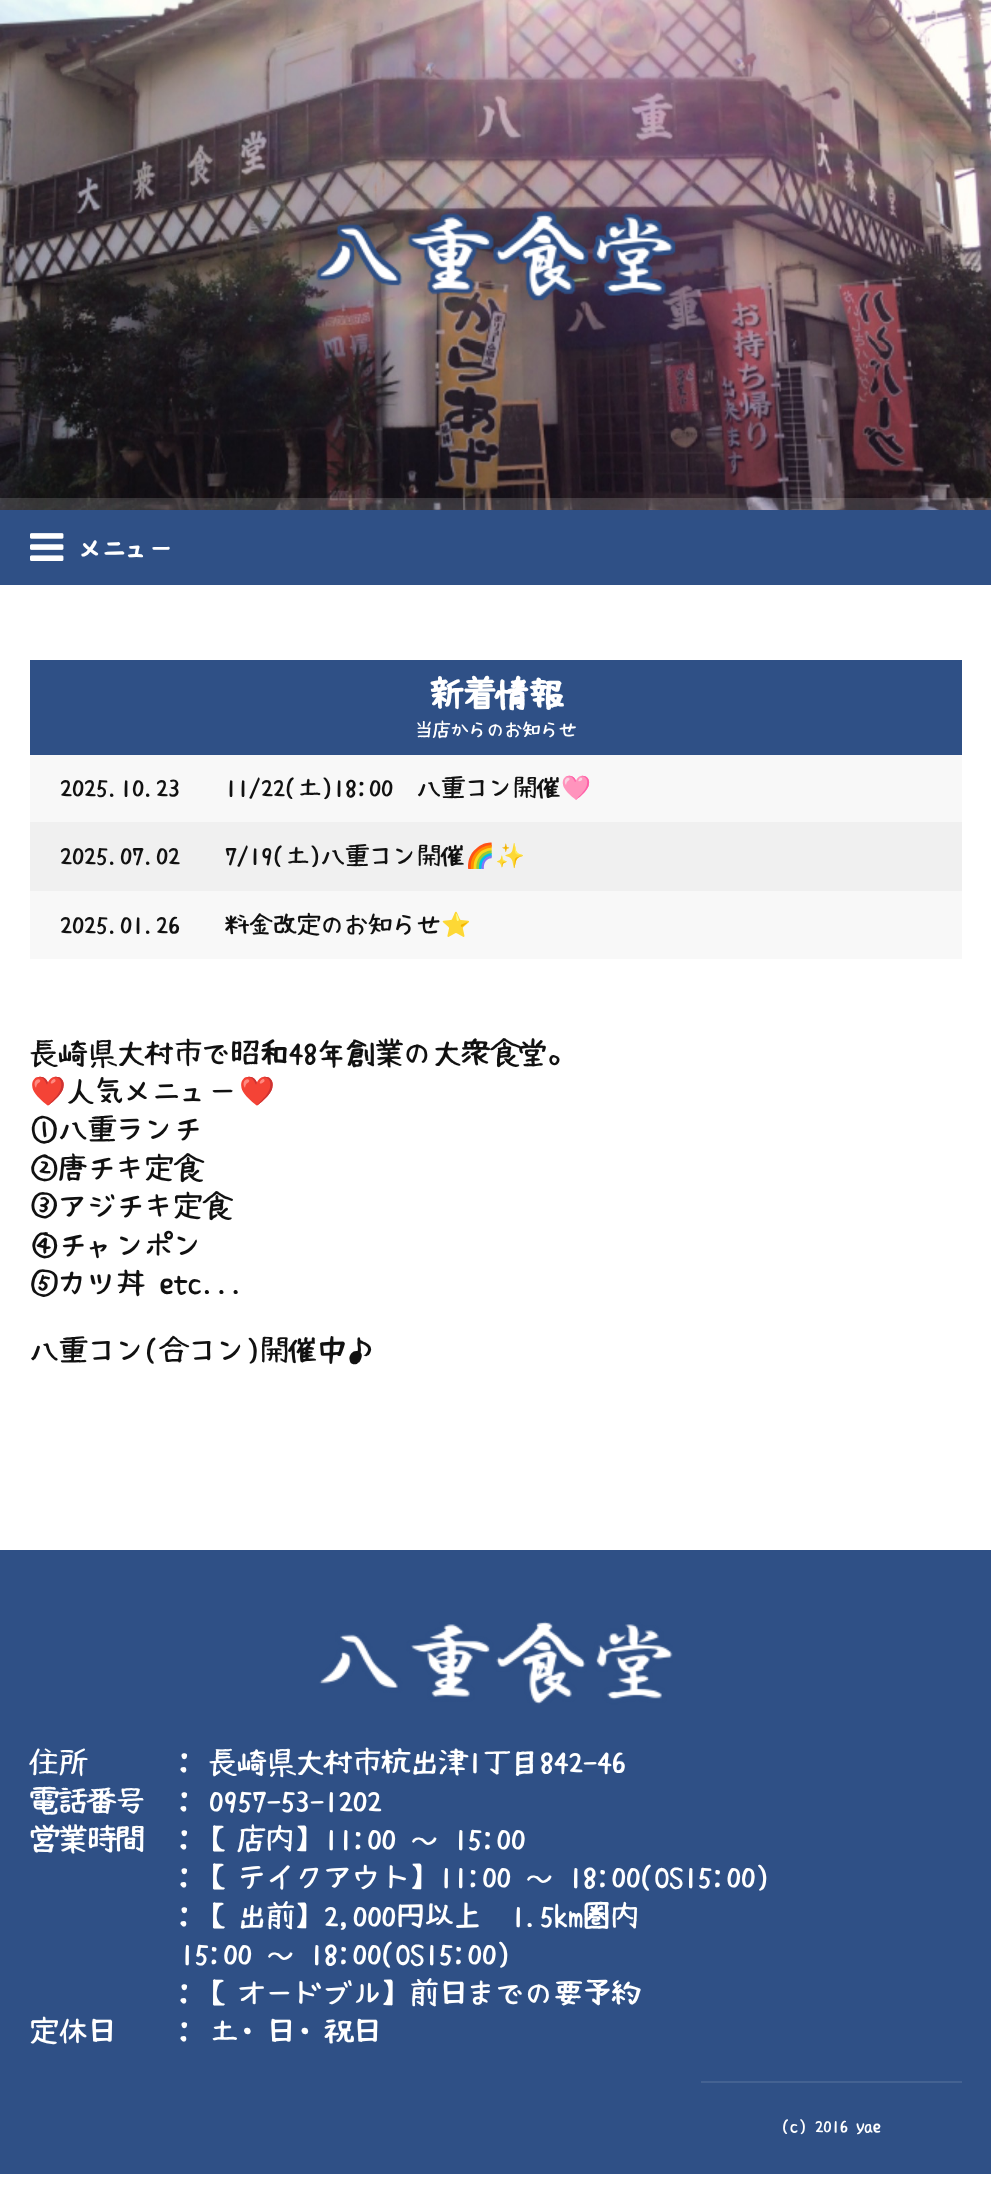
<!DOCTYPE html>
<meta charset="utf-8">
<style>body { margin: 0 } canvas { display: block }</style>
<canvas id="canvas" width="991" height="2188"></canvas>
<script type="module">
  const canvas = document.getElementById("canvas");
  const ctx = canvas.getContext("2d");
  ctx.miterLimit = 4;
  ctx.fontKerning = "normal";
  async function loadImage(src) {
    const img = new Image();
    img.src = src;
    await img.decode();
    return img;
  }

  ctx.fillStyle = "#ffffff";
  ctx.fillRect(0, 0, 991, 2188);
  ctx.drawImage(await loadImage("img1.png"), 0, 0, 991, 510);
  ctx.drawImage(await loadImage("img2.png"), 316, 211, 360, 90);
  ctx.fillStyle = "rgba(255, 255, 255, 0.15)";
  ctx.fillRect(0, 498, 991, 12);
  ctx.fillStyle = "#2f5086";
  ctx.fillRect(0, 510, 991, 75);
  ctx.drawImage(await loadImage("img3.png"), 30, 533, 34, 28);
  ctx.font = "bold 24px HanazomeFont";
  ctx.fillStyle = "#ffffff";
  ctx.fillText("メニュー", 78, 557);
  ctx.fillStyle = "#2f5086";
  ctx.fillRect(30, 660, 932, 95);
  ctx.font = "bold 33px HanazomeFont";
  ctx.fillStyle = "#ffffff";
  ctx.fillText("新着情報", 430, 705);
  ctx.font = "18px HanazomeFont";
  ctx.fillText("当店からのお知らせ", 415, 736);
  ctx.fillStyle = "#f8f8f8";
  ctx.fillRect(30, 755, 932, 67);
  ctx.font = "24px HanazomeFont";
  ctx.fillStyle = "#111111";
  ctx.fillText("2025.10.23", 60, 796);
  ctx.fillText("11/22(土)18:00〜八重コン開催", 225, 796);
  ctx.font = "24px Noto Color Emoji";
  ctx.fillText("🩷", 561, 796);
  ctx.fillStyle = "#f0f0f0";
  ctx.fillRect(30, 822, 932, 69);
  ctx.font = "24px HanazomeFont";
  ctx.fillStyle = "#111111";
  ctx.fillText("2025.07.02", 60, 864);
  ctx.fillText("7/19(土)八重コン開催", 225, 864);
  ctx.font = "24px Noto Color Emoji";
  ctx.fillText("🌈✨", 465, 864);
  ctx.fillStyle = "#f8f8f8";
  ctx.fillRect(30, 891, 932, 68);
  ctx.font = "24px HanazomeFont";
  ctx.fillStyle = "#111111";
  ctx.fillText("2025.01.26", 60, 933);
  ctx.fillText("料金改定のお知らせ", 225, 933);
  ctx.font = "24px Noto Color Emoji";
  ctx.fillText("⭐️", 441, 933);
  ctx.font = "28.75px HanazomeFont";
  ctx.fillText("長崎県大村市で昭和48年創業の大衆食堂。", 30, 1063);
  ctx.font = "28.75px Noto Color Emoji";
  ctx.fillText("❤️", 30, 1101);
  ctx.font = "28.75px HanazomeFont";
  ctx.fillText("人気メニュー", 66, 1101);
  ctx.font = "28.75px Noto Color Emoji";
  ctx.fillText("❤️", 239, 1101);
  ctx.font = "28.75px HanazomeFont";
  ctx.fillText("①八重ランチ", 30, 1139);
  ctx.fillText("②唐チキ定食", 30, 1178);
  ctx.fillText("③アジチキ定食", 30, 1216);
  ctx.fillText("④チャンポン", 30, 1255);
  ctx.fillText("⑤カツ丼 etc...", 30, 1293);
  ctx.fillText("八重コン(合コン)開催中♪", 30, 1360);
  ctx.fillStyle = "#2f5086";
  ctx.fillRect(0, 1550, 991, 624);
  ctx.drawImage(await loadImage("img4.png"), 319, 1621, 354, 84);
  ctx.fillStyle = "#ffffff";
  ctx.fillText("住所", 30, 1772);
  ctx.fillText("：", 171, 1772);
  ctx.fillText("長崎県大村市杭出津1丁目842-46", 209, 1772);
  ctx.fillText("電話番号", 30, 1811);
  ctx.fillText("：", 171, 1811);
  ctx.fillText("0957-53-1202", 209, 1811);
  ctx.fillText("営業時間", 30, 1849);
  ctx.fillText("：", 171, 1849);
  ctx.fillText("【店内】11:00 ～ 15:00", 209, 1849);
  ctx.fillText("：", 171, 1887);
  ctx.fillText("【テイクアウト】11:00 ～ 18:00(OS15:00)", 209, 1887);
  ctx.fillText("：", 171, 1926);
  ctx.fillText("【出前】2,000円以上〜1.5km圏内", 209, 1926);
  ctx.fillText("15:00 ～ 18:00(OS15:00)", 180, 1964);
  ctx.fillText("：", 171, 2003);
  ctx.fillText("【オードブル】前日までの要予約", 209, 2003);
  ctx.fillText("定休日", 30, 2041);
  ctx.fillText("：", 171, 2041);
  ctx.fillText("土・日・祝日", 209, 2041);
  ctx.fillStyle = "#446292";
  ctx.fillRect(701, 2081, 261, 2);
  ctx.font = "16.5px HanazomeFont";
  ctx.fillStyle = "#ffffff";
  ctx.fillText("(c) 2016 yae", 782, 2132);
</script>
